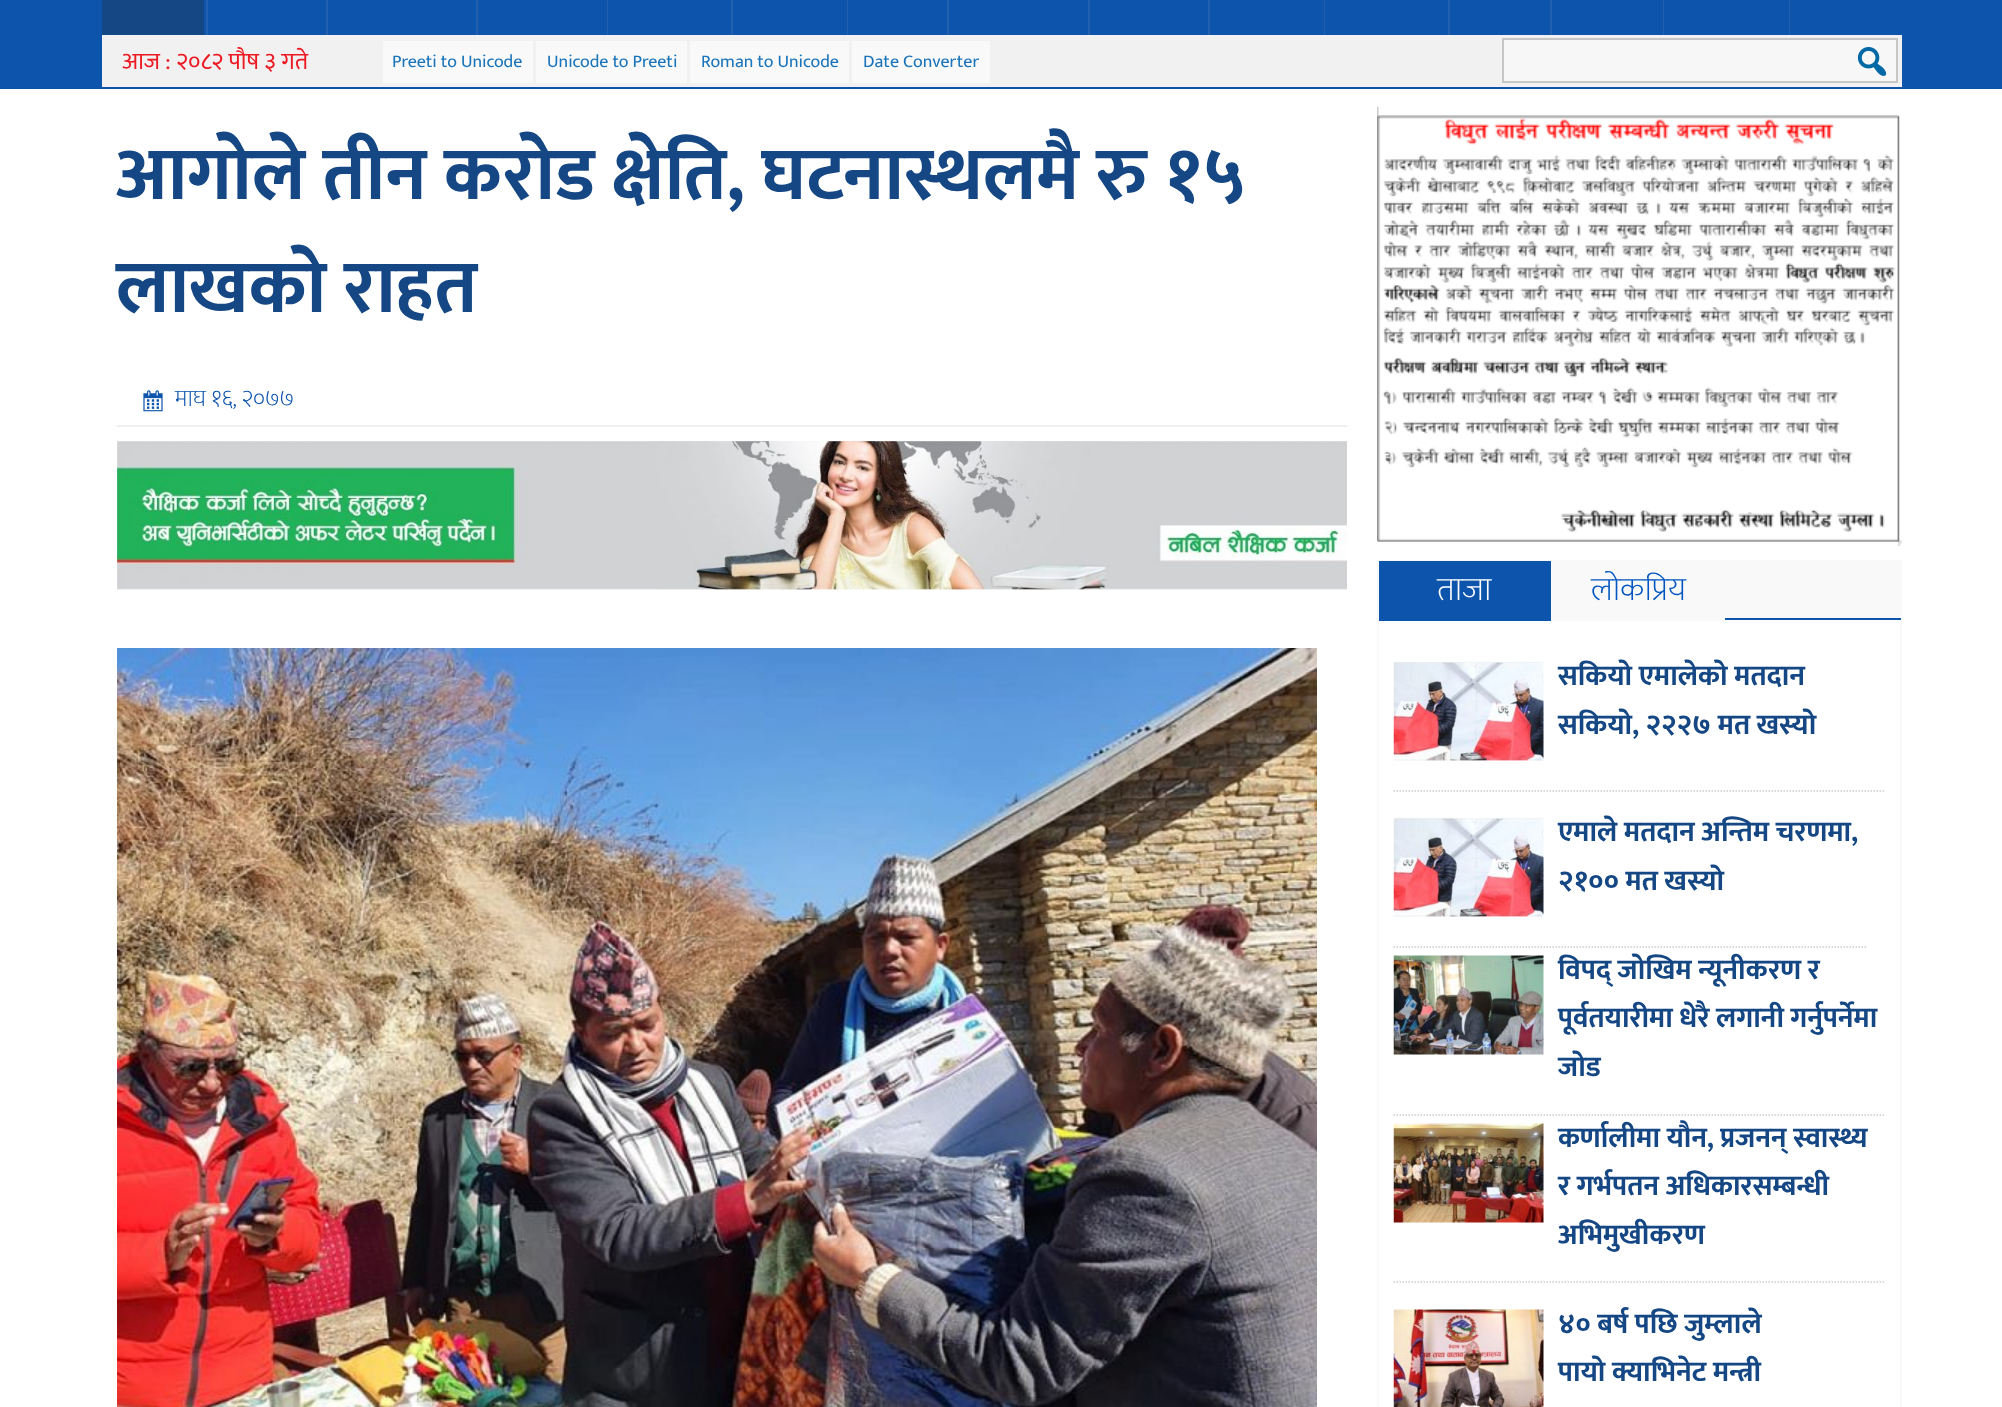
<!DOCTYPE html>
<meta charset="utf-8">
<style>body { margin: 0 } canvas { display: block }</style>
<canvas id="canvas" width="2002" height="1407"></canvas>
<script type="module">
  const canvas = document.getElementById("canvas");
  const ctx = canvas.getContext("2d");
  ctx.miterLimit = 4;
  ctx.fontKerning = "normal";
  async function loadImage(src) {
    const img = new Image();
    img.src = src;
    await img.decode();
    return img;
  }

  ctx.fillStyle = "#ffffff";
  ctx.fillRect(0, 0, 2002, 1407);
  ctx.fillStyle = "#0c54ac";
  ctx.fillRect(0, 0, 2002, 89);
  ctx.fillStyle = "#2060af";
  ctx.fillRect(206, 0, 2, 35);
  ctx.fillStyle = "#154784";
  ctx.fillRect(102, 0, 102, 35);
  ctx.fillStyle = "#2060af";
  ctx.fillRect(326, 0, 2, 35);
  ctx.fillRect(476, 0, 2, 35);
  ctx.fillRect(607, 0, 1, 35);
  ctx.fillRect(731, 0, 2, 35);
  ctx.fillRect(847, 0, 1, 35);
  ctx.fillRect(947, 0, 2, 35);
  ctx.fillRect(1088, 0, 2, 35);
  ctx.fillRect(1208, 0, 2, 35);
  ctx.fillRect(1324, 0, 1, 35);
  ctx.fillRect(1448, 0, 2, 35);
  ctx.fillRect(1550, 0, 2, 35);
  ctx.fillRect(1663, 0, 1, 35);
  ctx.fillRect(1789, 0, 1, 35);
  ctx.fillStyle = "#f1f1f1";
  ctx.fillRect(102, 35, 1800, 52);
  ctx.font = "24px Mukta";
  ctx.fillStyle = "#ec1b23";
  ctx.fillText("आज : २०८२ पौष ३ गते", 122, 69);
  ctx.fillStyle = "#f9f9f9";
  ctx.fillRect(383, 41, 150, 42);
  ctx.font = "18px Mukta";
  ctx.fillStyle = "#1a74ba";
  ctx.fillText("Preeti to Unicode", 392, 67);
  ctx.fillStyle = "#f9f9f9";
  ctx.fillRect(536, 41, 151, 42);
  ctx.fillStyle = "#1a74ba";
  ctx.fillText("Unicode to Preeti", 547, 67);
  ctx.fillStyle = "#f9f9f9";
  ctx.fillRect(690, 41, 159, 42);
  ctx.fillStyle = "#1a74ba";
  ctx.fillText("Roman to Unicode", 701, 67);
  ctx.fillStyle = "#f9f9f9";
  ctx.fillRect(852, 41, 138, 42);
  ctx.fillStyle = "#1a74ba";
  ctx.fillText("Date Converter", 863, 67);
  ctx.fillStyle = "#f7f7f7";
  ctx.beginPath();
  ctx.rect(1503, 39, 394, 43);
  ctx.fill();
  ctx.strokeStyle = "#c6c6c6";
  ctx.lineWidth = 2;
  ctx.stroke();
  ctx.drawImage(await loadImage("img1.png"), 1857, 47, 30, 29);
  ctx.font = "bold 75px Mukta";
  ctx.fillStyle = "#154784";
  ctx.fillText("आगोले तीन करोड क्षेति, घटनास्थलमै रु १५", 116, 199);
  ctx.fillText("लाखको राहत", 116, 312);
  ctx.fillStyle = "#efefef";
  ctx.fillRect(117, 425, 1230, 2);
  ctx.drawImage(await loadImage("img2.png"), 143, 390, 20, 22);
  ctx.font = "200 24px Mukta";
  ctx.fillStyle = "#0c54ac";
  ctx.fillText("माघ १६, २०७७", 175, 406);
  ctx.drawImage(await loadImage("img3.png"), 117, 441, 1230, 149);
  ctx.drawImage(await loadImage("img4.png"), 117, 648, 1200, 759);
  ctx.drawImage(await loadImage("img5.png"), 1377, 106, 525, 440);
  ctx.strokeStyle = "#f9f9f9";
  ctx.strokeRect(1378, 561, 523, 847);
  ctx.fillStyle = "#f9f9f9";
  ctx.fillRect(1725, 562, 175, 56);
  ctx.fillStyle = "#0c54ac";
  ctx.fillRect(1725, 618, 176, 2);
  ctx.fillRect(1379, 561, 172, 60);
  ctx.font = "200 33px Mukta";
  ctx.fillStyle = "#ffffff";
  ctx.fillText("ताजा", 1437, 600);
  ctx.fillStyle = "#f9f9f9";
  ctx.fillRect(1551, 562, 174, 59);
  ctx.fillStyle = "#0055c1";
  ctx.fillText("लोकप्रिय", 1591, 600);
  ctx.beginPath();
  ctx.moveTo(1393.5, 791);
  ctx.lineTo(1885.5, 791);
  ctx.strokeStyle = "#cccccc";
  ctx.lineWidth = 1.5;
  ctx.setLineDash([1.5, 1.5]);
  ctx.stroke();
  ctx.drawImage(await loadImage("img6.png"), 1393, 661, 151, 100);
  ctx.font = "bold 28.5px Mukta";
  ctx.fillStyle = "#154784";
  ctx.fillText("सकियो एमालेको मतदान", 1558, 685);
  ctx.fillText("सकियाे, २२२७ मत खस्याे", 1558, 734);
  ctx.beginPath();
  ctx.moveTo(1393.5, 947);
  ctx.lineTo(1866, 947);
  ctx.stroke();
  ctx.drawImage(await loadImage("img6.png"), 1393, 817, 151, 100);
  ctx.fillText("एमाले मतदान अन्तिम चरणमा,", 1558, 841);
  ctx.fillText("२१०० मत खस्याे", 1558, 890);
  ctx.beginPath();
  ctx.moveTo(1393.5, 1115);
  ctx.lineTo(1885.5, 1115);
  ctx.stroke();
  ctx.drawImage(await loadImage("img7.png"), 1393, 955, 151, 100);
  ctx.fillText("विपद् जोखिम न्यूनीकरण र", 1558, 979);
  ctx.fillText("पूर्वतयारीमा धेरै लगानी गर्नुपर्नेमा", 1558, 1027);
  ctx.fillText("जोड", 1558, 1076);
  ctx.beginPath();
  ctx.moveTo(1393.5, 1282);
  ctx.lineTo(1885.5, 1282);
  ctx.stroke();
  ctx.drawImage(await loadImage("img8.png"), 1393, 1123, 151, 100);
  ctx.fillText("कर्णालीमा यौन, प्रजनन् स्वास्थ्य", 1558, 1147);
  ctx.fillText("र गर्भपतन अधिकारसम्बन्धी", 1558, 1195);
  ctx.fillText("अभिमुखीकरण", 1558, 1244);
  ctx.drawImage(await loadImage("img9.png"), 1393, 1309, 151, 98);
  ctx.fillText("४० बर्ष पछि जुम्लाले", 1558, 1333);
  ctx.fillText("पायो क्याभिनेट मन्त्री", 1558, 1381);
</script>
